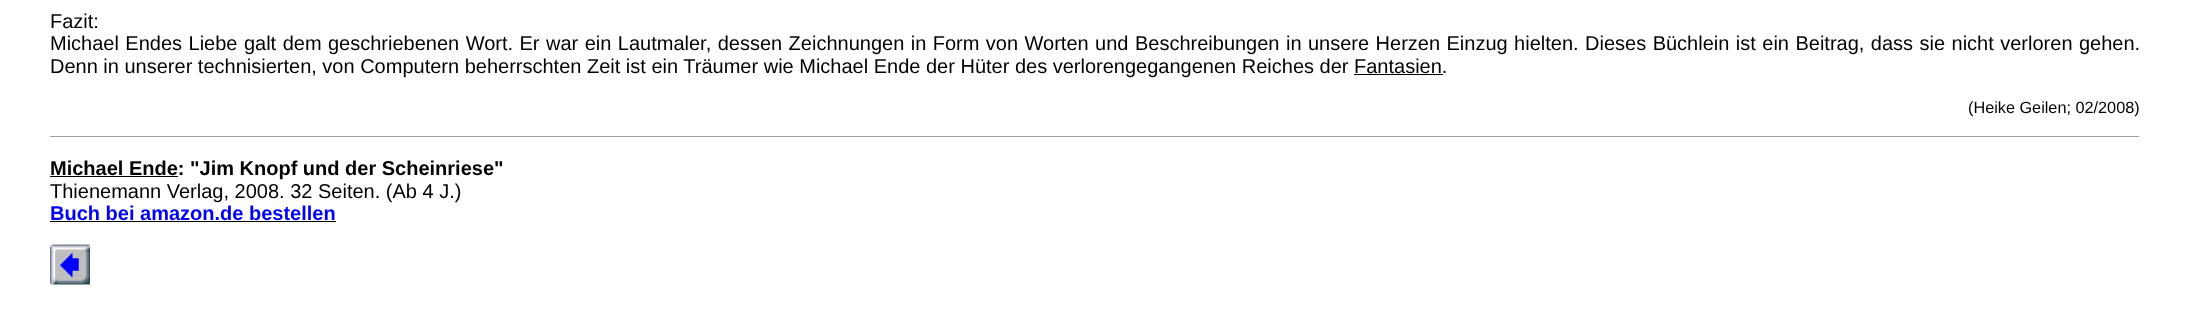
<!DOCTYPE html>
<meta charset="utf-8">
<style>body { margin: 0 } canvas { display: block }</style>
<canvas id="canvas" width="2189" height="310"></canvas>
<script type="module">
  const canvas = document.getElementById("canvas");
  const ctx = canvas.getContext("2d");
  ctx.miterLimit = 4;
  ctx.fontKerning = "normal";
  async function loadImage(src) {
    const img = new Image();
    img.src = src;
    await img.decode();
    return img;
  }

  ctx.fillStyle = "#ffffff";
  ctx.fillRect(0, 0, 2189, 310);
  ctx.font = "20px Liberation Sans";
  ctx.fillStyle = "#000000";
  ctx.fillText("Fazit:", 50, 28);
  ctx.wordSpacing = "0.9px";
  ctx.fillText("Michael Endes Liebe galt dem geschriebenen Wort. Er war ein Lautmaler, dessen Zeichnungen in Form von Worten und Beschreibungen in unsere Herzen Einzug hielten. Dieses Büchlein ist ein Beitrag, dass sie nicht verloren gehen.", 50, 50);
  ctx.wordSpacing = "0px";
  ctx.fillText("Denn in unserer technisierten, von Computern beherrschten Zeit ist ein Träumer wie Michael Ende der Hüter des verlorengegangenen Reiches der Fantasien.", 50, 73);
  ctx.fillRect(1354, 74, 89, 1);
  ctx.font = "16.25px Liberation Sans";
  ctx.fillText("(Heike Geilen; 02/2008)", 1968, 113);
  ctx.fillStyle = "#9f9f9f";
  ctx.fillRect(50, 136, 2090, 1);
  ctx.fillStyle = "#eeeeee";
  ctx.fillRect(2139, 136, 1, 1);
  ctx.fillStyle = "#000000";
  ctx.fillRect(50, 176, 128, 1);
  ctx.font = "bold 20px Liberation Sans";
  ctx.fillText("Michael Ende: \"Jim Knopf und der Scheinriese\"", 50, 175);
  ctx.font = "20px Liberation Sans";
  ctx.fillText("Thienemann Verlag, 2008. 32 Seiten. (Ab 4 J.)", 50, 198);
  ctx.font = "bold 20px Liberation Sans";
  ctx.fillStyle = "#0000ff";
  ctx.fillText("Buch bei amazon.de bestellen", 50, 220);
  ctx.fillStyle = "#000000";
  ctx.fillRect(50, 221, 286, 1);
  ctx.drawImage(await loadImage("img1.png"), 50, 244, 40, 41);
</script>
